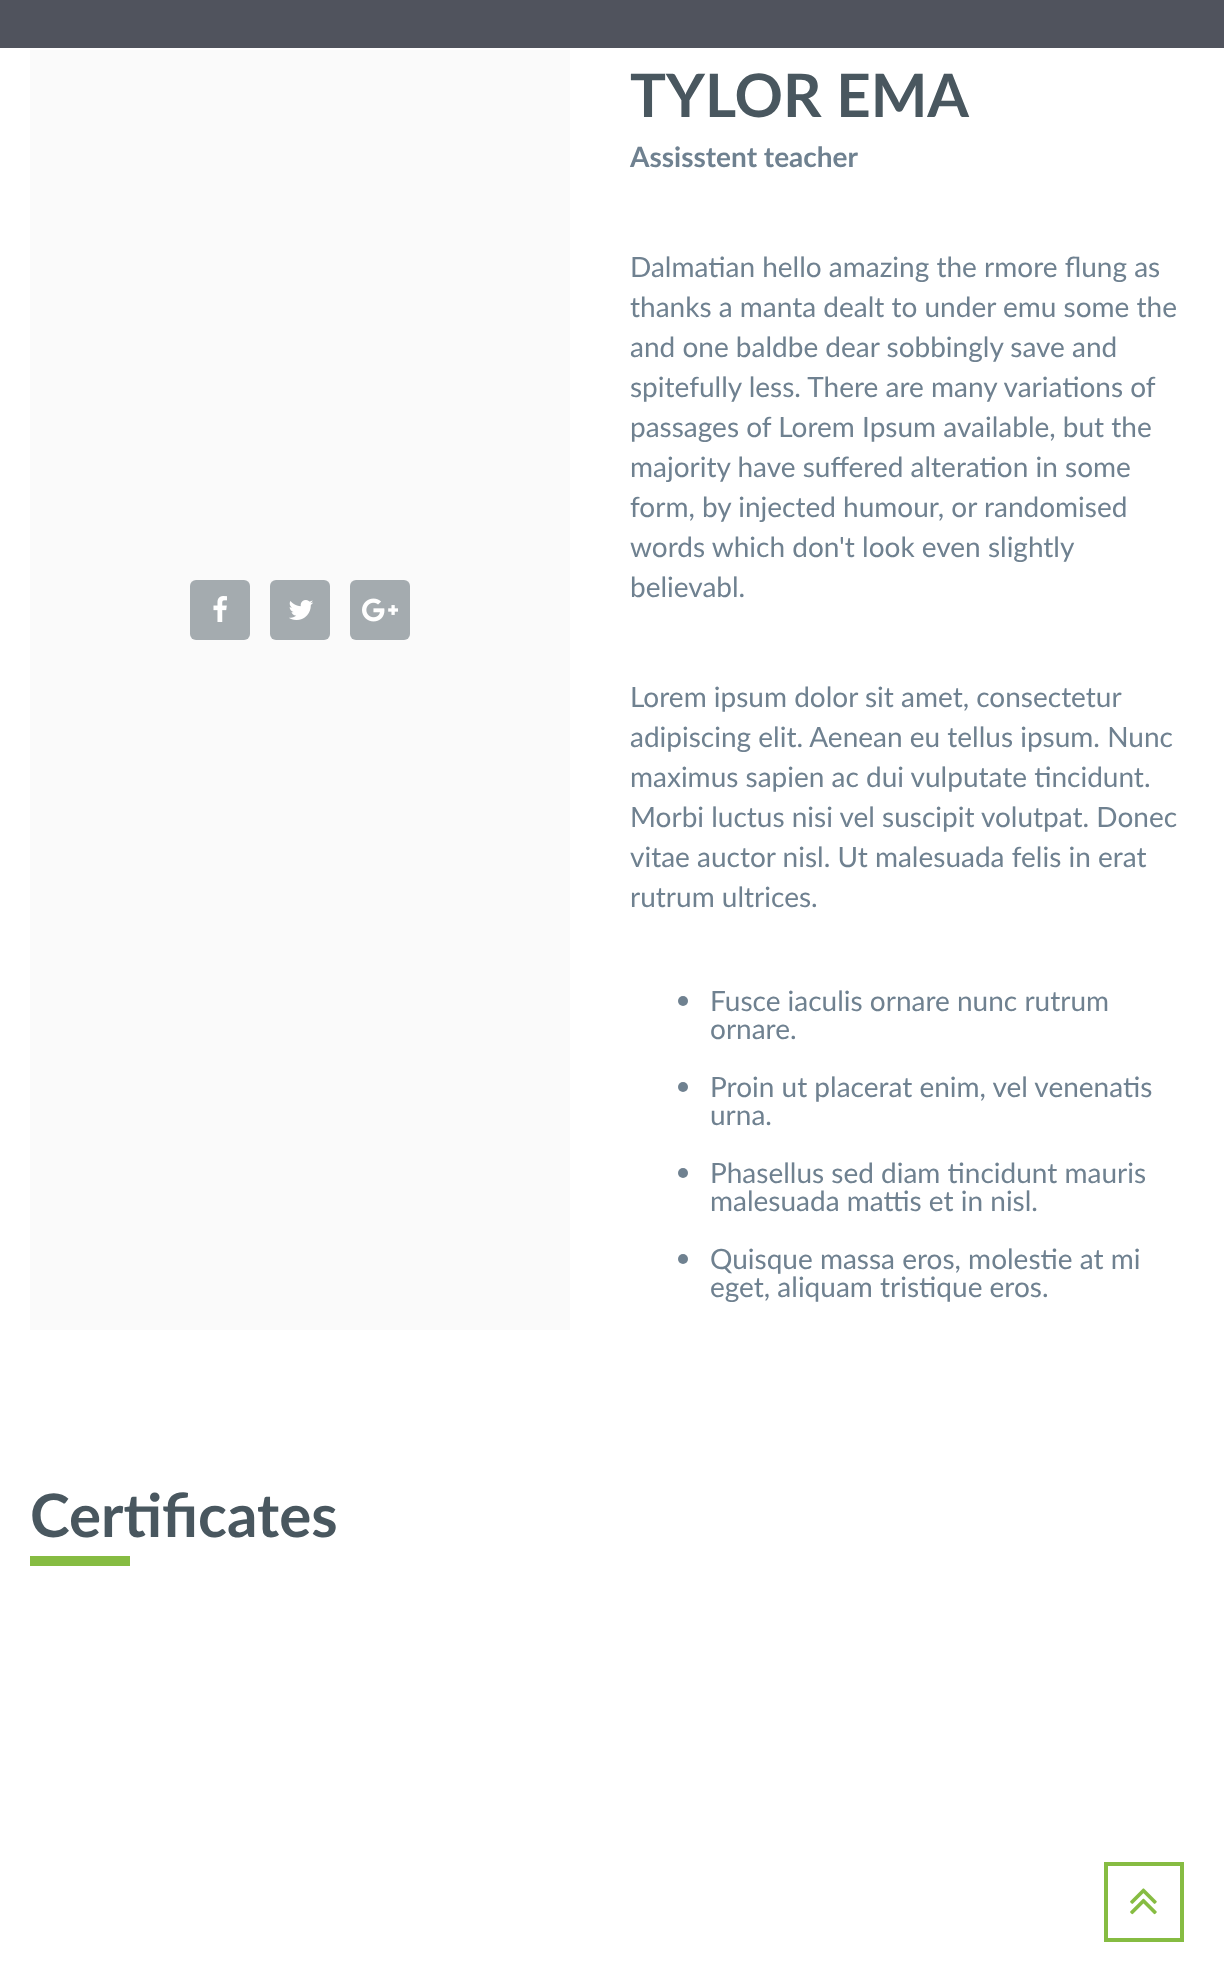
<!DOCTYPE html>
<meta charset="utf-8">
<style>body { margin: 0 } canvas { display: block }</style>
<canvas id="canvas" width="1224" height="1982"></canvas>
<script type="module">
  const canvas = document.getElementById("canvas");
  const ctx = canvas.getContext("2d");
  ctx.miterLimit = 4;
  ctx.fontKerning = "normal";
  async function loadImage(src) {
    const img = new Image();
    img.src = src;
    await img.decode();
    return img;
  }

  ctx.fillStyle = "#ffffff";
  ctx.fillRect(0, 0, 1224, 1982);
  ctx.fillStyle = "#50535d";
  ctx.fillRect(0, 0, 1224, 48);
  ctx.fillStyle = "#fafafa";
  ctx.fillRect(30, 50, 540, 1280);
  ctx.fillStyle = "#a4abaf";
  ctx.beginPath();
  ctx.roundRect(190, 580, 60, 60, 6);
  ctx.fill();
  ctx.drawImage(await loadImage("img1.png"), 213, 596, 14, 26);
  ctx.beginPath();
  ctx.roundRect(270, 580, 60, 60, 6);
  ctx.fill();
  ctx.drawImage(await loadImage("img2.png"), 289, 600, 24, 20);
  ctx.beginPath();
  ctx.roundRect(350, 580, 60, 60, 6);
  ctx.fill();
  ctx.drawImage(await loadImage("img3.png"), 362, 598, 36, 24);
  ctx.font = "bold 60px Lato";
  ctx.fillStyle = "#49575f";
  ctx.fillText("TYLOR EMA", 630, 117);
  ctx.font = "bold 28px Lato";
  ctx.fillStyle = "#6f8190";
  ctx.fillText("Assisstent teacher", 630, 167);
  ctx.font = "28px Lato";
  ctx.fillText("Dalmatian hello amazing the rmore flung as", 630, 277);
  ctx.fillText("thanks a manta dealt to under emu some the", 630, 317);
  ctx.fillText("and one baldbe dear sobbingly save and", 630, 357);
  ctx.fillText("spitefully less. There are many variations of", 630, 397);
  ctx.fillText("passages of Lorem Ipsum available, but the", 630, 437);
  ctx.fillText("majority have suffered alteration in some", 630, 477);
  ctx.fillText("form, by injected humour, or randomised", 630, 517);
  ctx.fillText("words which don't look even slightly", 630, 557);
  ctx.fillText("believabl.", 630, 597);
  ctx.fillText("Lorem ipsum dolor sit amet, consectetur", 630, 707);
  ctx.fillText("adipiscing elit. Aenean eu tellus ipsum. Nunc", 630, 747);
  ctx.fillText("maximus sapien ac dui vulputate tincidunt.", 630, 787);
  ctx.fillText("Morbi luctus nisi vel suscipit volutpat. Donec", 630, 827);
  ctx.fillText("vitae auctor nisl. Ut malesuada felis in erat", 630, 867);
  ctx.fillText("rutrum ultrices.", 630, 907);
  ctx.beginPath();
  ctx.arc(683, 1001, 5, 0, Math.PI * 2);
  ctx.fill();
  ctx.fillText("Fusce iaculis ornare nunc rutrum", 710, 1011);
  ctx.fillText("ornare.", 710, 1039);
  ctx.beginPath();
  ctx.arc(683, 1087, 5, 0, Math.PI * 2);
  ctx.fill();
  ctx.fillText("Proin ut placerat enim, vel venenatis", 710, 1097);
  ctx.fillText("urna.", 710, 1125);
  ctx.beginPath();
  ctx.arc(683, 1173, 5, 0, Math.PI * 2);
  ctx.fill();
  ctx.fillText("Phasellus sed diam tincidunt mauris", 710, 1183);
  ctx.fillText("malesuada mattis et in nisl.", 710, 1211);
  ctx.beginPath();
  ctx.arc(683, 1259, 5, 0, Math.PI * 2);
  ctx.fill();
  ctx.fillText("Quisque massa eros, molestie at mi", 710, 1269);
  ctx.fillText("eget, aliquam tristique eros.", 710, 1297);
  ctx.font = "bold 60px Lato";
  ctx.fillStyle = "#49575f";
  ctx.fillText("Certificates", 30, 1537);
  ctx.fillStyle = "#86bc42";
  ctx.fillRect(30, 1556, 100, 10);
  ctx.strokeStyle = "#86bc42";
  ctx.lineWidth = 4;
  ctx.strokeRect(1106, 1864, 76, 76);
  ctx.drawImage(await loadImage("img4.png"), 1130, 1888, 27, 27);
</script>
